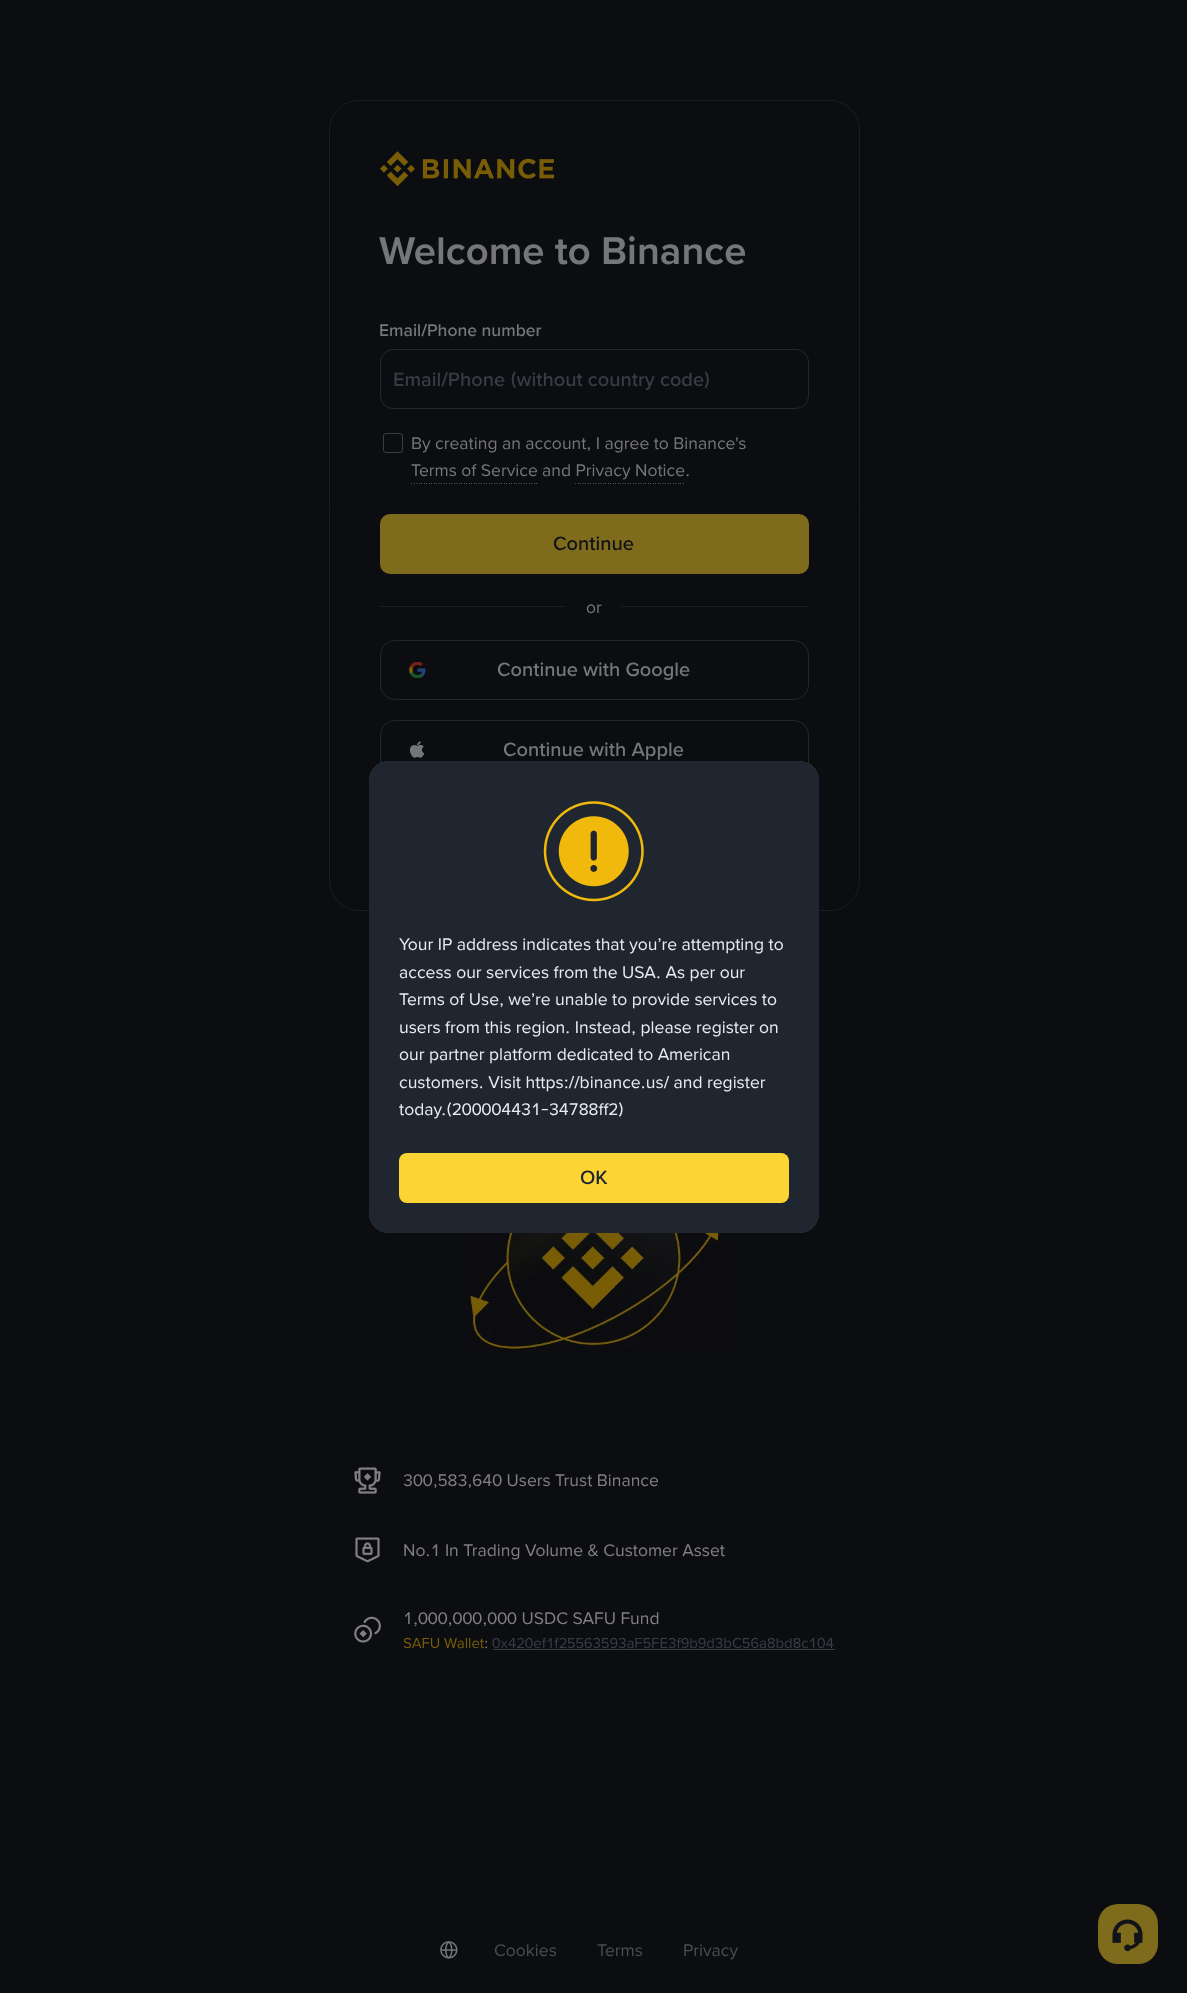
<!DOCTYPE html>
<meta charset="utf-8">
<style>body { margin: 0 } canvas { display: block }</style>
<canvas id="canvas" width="1187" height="1993"></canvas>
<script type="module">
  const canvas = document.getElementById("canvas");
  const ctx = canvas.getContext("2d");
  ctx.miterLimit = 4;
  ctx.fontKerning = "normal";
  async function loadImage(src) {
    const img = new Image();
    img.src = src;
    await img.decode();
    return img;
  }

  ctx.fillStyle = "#0c0d10";
  ctx.fillRect(0, 0, 1187, 1993);
  ctx.beginPath();
  ctx.roundRect(329.5, 100.5, 530, 810, 29.5);
  ctx.strokeStyle = "#1a1e24";
  ctx.stroke();
  ctx.drawImage(await loadImage("img1.png"), 380, 151, 175, 35);
  ctx.font = "600 40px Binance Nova";
  ctx.fillStyle = "#757678";
  ctx.fillText("Welcome to Binance", 379, 264);
  ctx.font = "500 17.5px Binance Nova";
  ctx.fillText("Email/Phone number", 379, 336);
  ctx.beginPath();
  ctx.roundRect(380.5, 349.5, 428, 59, 12.5);
  ctx.strokeStyle = "#24272c";
  ctx.stroke();
  ctx.font = "500 20px Binance Nova";
  ctx.fillStyle = "#383d45";
  ctx.fillText("Email/Phone (without country code)", 393, 386);
  ctx.beginPath();
  ctx.roundRect(383.5, 433.5, 19, 19, 2.5);
  ctx.strokeStyle = "#383d45";
  ctx.stroke();
  ctx.font = "17.5px Binance Nova";
  ctx.fillStyle = "#757678";
  ctx.fillText("By creating an account, I agree to Binance's", 411, 449);
  ctx.fillText("Terms of Service", 411, 476);
  ctx.drawImage(await loadImage("img2.png"), 411, 483, 126, 1);
  ctx.fillText("and Privacy Notice", 542, 476);
  ctx.fillText(".", 685, 476);
  ctx.drawImage(await loadImage("img3.png"), 575, 483, 109, 1);
  ctx.fillStyle = "#7e6b1b";
  ctx.beginPath();
  ctx.roundRect(380, 514, 429, 60, 10);
  ctx.fill();
  ctx.font = "500 20px Binance Nova";
  ctx.fillStyle = "#101318";
  ctx.fillText("Continue", 553, 550);
  ctx.fillStyle = "#1a1e24";
  ctx.fillRect(380, 606, 186, 1);
  ctx.font = "17.5px Binance Nova";
  ctx.fillStyle = "#757678";
  ctx.fillText("or", 586, 613);
  ctx.fillStyle = "#1a1e24";
  ctx.fillRect(621, 606, 188, 1);
  ctx.beginPath();
  ctx.roundRect(380.5, 640.5, 428, 59, 14.5);
  ctx.strokeStyle = "#22262d";
  ctx.stroke();
  ctx.drawImage(await loadImage("img4.png"), 409, 662, 17, 16);
  ctx.font = "500 20px Binance Nova";
  ctx.fillStyle = "#757678";
  ctx.fillText("Continue with Google", 497, 676);
  ctx.beginPath();
  ctx.roundRect(380.5, 720.5, 428, 59, 14.5);
  ctx.stroke();
  ctx.drawImage(await loadImage("img5.png"), 409, 741, 16, 17);
  ctx.fillText("Continue with Apple", 503, 756);
  ctx.drawImage(await loadImage("img6.png"), 469, 1233, 256, 119);
  ctx.drawImage(await loadImage("img7.png"), 354, 1467, 27, 27);
  ctx.font = "17.5px Binance Nova";
  ctx.fillStyle = "#808080";
  ctx.fillText("300,583,640 Users Trust Binance", 403, 1486);
  ctx.drawImage(await loadImage("img8.png"), 355, 1537, 25, 26);
  ctx.fillText("No.1 In Trading Volume & Customer Asset", 403, 1556);
  ctx.drawImage(await loadImage("img9.png"), 354, 1616, 27, 27);
  ctx.fillText("1,000,000,000 USDC SAFU Fund", 403, 1624);
  ctx.font = "15px Binance Nova";
  ctx.fillStyle = "#785d06";
  ctx.fillText("SAFU Wallet", 403, 1648);
  ctx.fillStyle = "#808080";
  ctx.fillText(":", 484, 1648);
  ctx.fillStyle = "#383d45";
  ctx.fillText("0x420ef1f25563593aF5FE3f9b9d3bC56a8bd8c104", 492, 1648);
  ctx.fillRect(493, 1649, 342, 1);
  ctx.drawImage(await loadImage("img10.png"), 440, 1941, 18, 18);
  ctx.font = "17.5px Binance Nova";
  ctx.fillStyle = "#494d53";
  ctx.fillText("Cookies", 494, 1956);
  ctx.fillText("Terms", 597, 1956);
  ctx.fillText("Privacy", 683, 1956);
  ctx.fillStyle = "rgba(94, 102, 115, 0.8)";
  ctx.filter = "blur(0.5px)";
  ctx.beginPath();
  ctx.roundRect(369, 761, 450, 472, 20);
  ctx.fill();
  ctx.filter = "none";
  ctx.fillStyle = "#202630";
  ctx.beginPath();
  ctx.roundRect(369, 761, 450, 472, 20);
  ctx.fill();
  ctx.drawImage(await loadImage("img11.png"), 543, 801, 101, 101);
  ctx.fillStyle = "#eaecef";
  ctx.fillText("Your IP address indicates that you’re attempting to", 399, 950);
  ctx.fillText("access our services from the USA. As per our", 399, 978);
  ctx.fillText("Terms of Use, we’re unable to provide services to", 399, 1005);
  ctx.fillText("users from this region. Instead, please register on", 399, 1033);
  ctx.fillText("our partner platform dedicated to American", 399, 1060);
  ctx.fillText("customers. Visit https://binance.us/ and register", 399, 1088);
  ctx.fillText("today.(200004431-34788ff2)", 399, 1115);
  ctx.fillStyle = "#fcd535";
  ctx.beginPath();
  ctx.roundRect(399, 1153, 390, 50, 8);
  ctx.fill();
  ctx.font = "500 20px Binance Nova";
  ctx.fillStyle = "#202630";
  ctx.fillText("OK", 580, 1184);
  ctx.fillStyle = "#7e6b1b";
  ctx.beginPath();
  ctx.roundRect(1098, 1904, 60, 60, 20);
  ctx.fill();
  ctx.drawImage(await loadImage("img12.png"), 1112, 1919, 31, 33);
</script>
